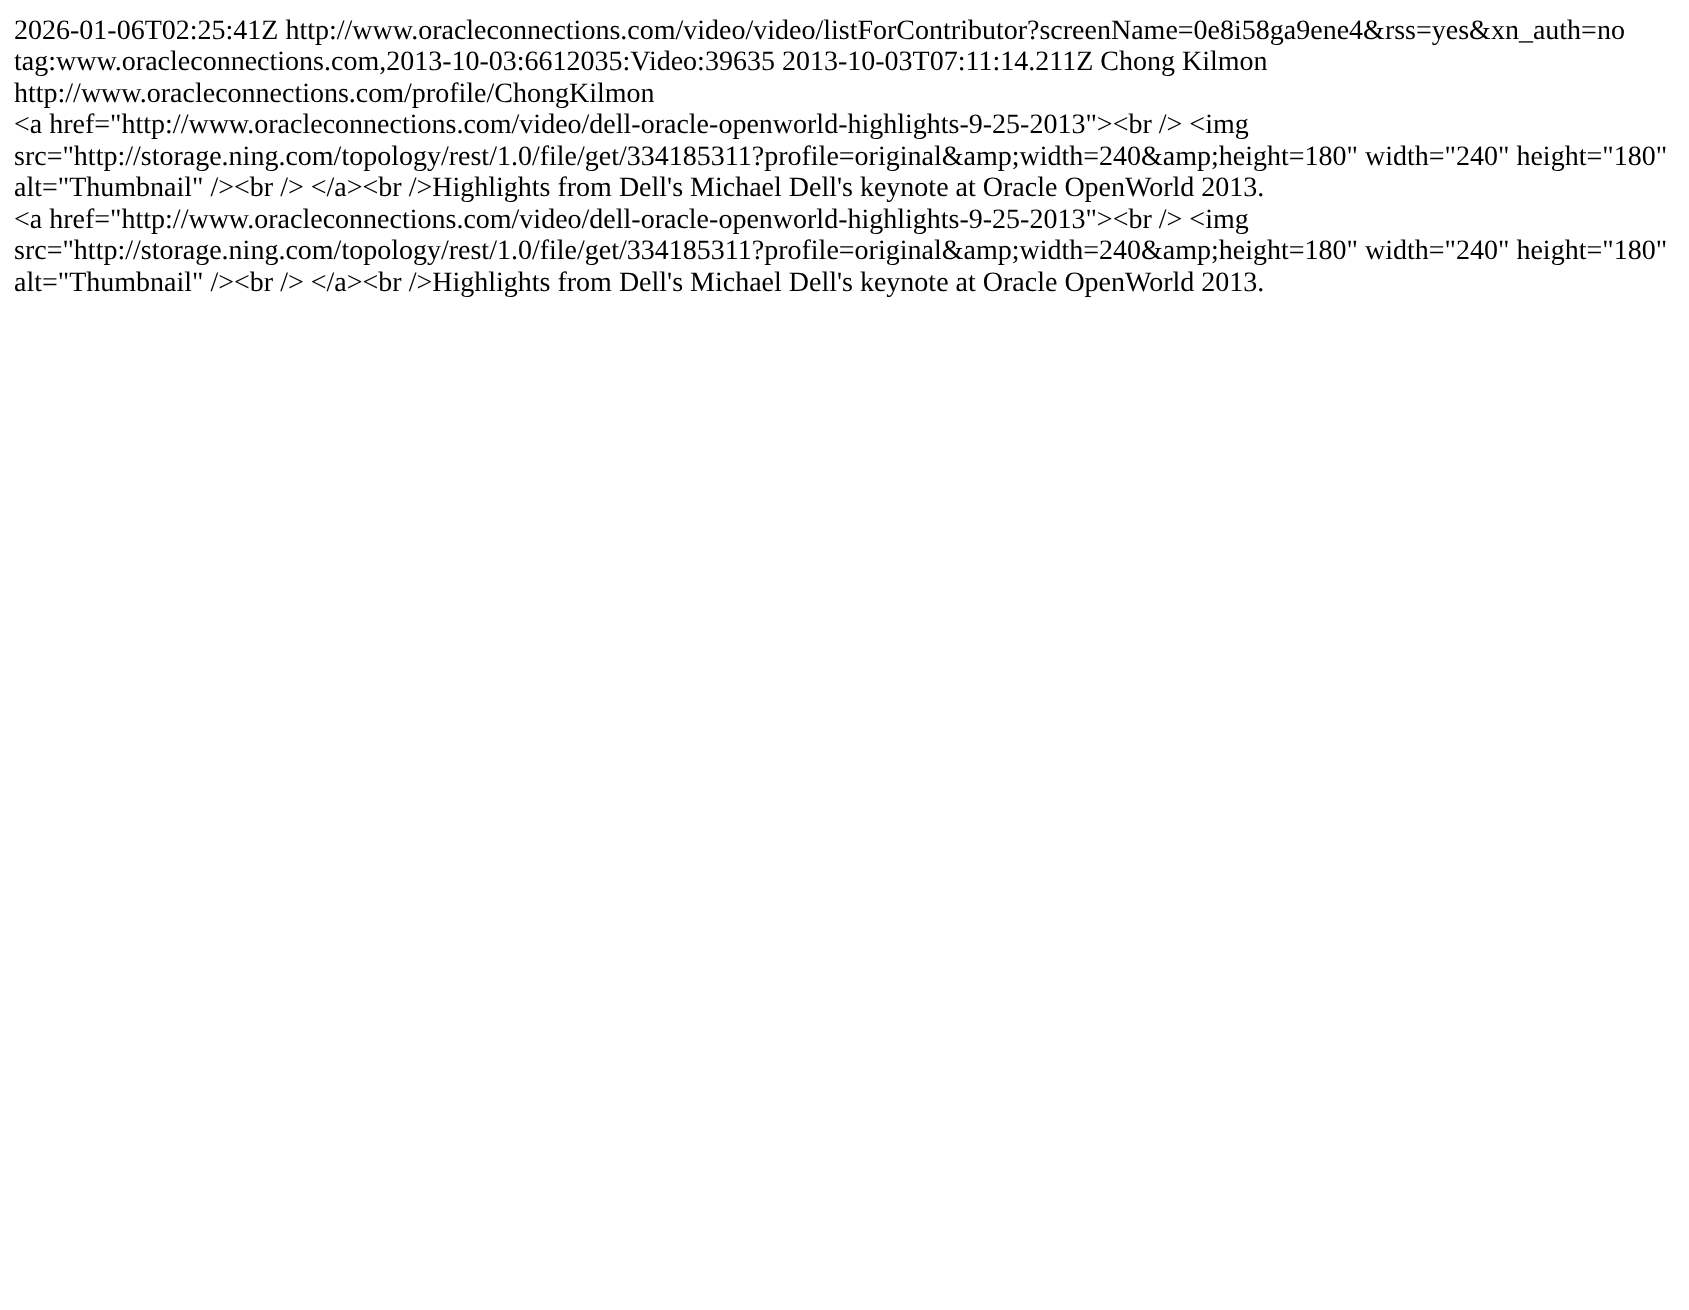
<!DOCTYPE html>
<meta charset="utf-8">
<style>body { margin: 0 } canvas { display: block }</style>
<canvas id="canvas" width="1689" height="1310"></canvas>
<script type="module">
  const canvas = document.getElementById("canvas");
  const ctx = canvas.getContext("2d");
  ctx.miterLimit = 4;
  ctx.fontKerning = "normal";

  ctx.fillStyle = "#ffffff";
  ctx.fillRect(0, 0, 1689, 1310);
  ctx.font = "28px Liberation Serif";
  ctx.fillStyle = "#000000";
  ctx.fillText("2026-01-06T02:25:41Z http://www.oracleconnections.com/video/video/listForContributor?screenName=0e8i58ga9ene4&rss=yes&xn_auth=no", 14, 39);
  ctx.fillText("tag:www.oracleconnections.com,2013-10-03:6612035:Video:39635 2013-10-03T07:11:14.211Z Chong Kilmon", 14, 70);
  ctx.fillText("http://www.oracleconnections.com/profile/ChongKilmon", 14, 102);
  ctx.fillText("<a href=\"http://www.oracleconnections.com/video/dell-oracle-openworld-highlights-9-25-2013\"><br /> <img", 14, 133);
  ctx.fillText("src=\"http://storage.ning.com/topology/rest/1.0/file/get/334185311?profile=original&amp;width=240&amp;height=180\" width=\"240\" height=\"180\"", 14, 165);
  ctx.fillText("alt=\"Thumbnail\" /><br /> <\/a><br />Highlights from Dell's Michael Dell's keynote at Oracle OpenWorld 2013.", 14, 196);
  ctx.fillText("<a href=\"http://www.oracleconnections.com/video/dell-oracle-openworld-highlights-9-25-2013\"><br /> <img", 14, 228);
  ctx.fillText("src=\"http://storage.ning.com/topology/rest/1.0/file/get/334185311?profile=original&amp;width=240&amp;height=180\" width=\"240\" height=\"180\"", 14, 259);
  ctx.fillText("alt=\"Thumbnail\" /><br /> <\/a><br />Highlights from Dell's Michael Dell's keynote at Oracle OpenWorld 2013.", 14, 291);
</script>
